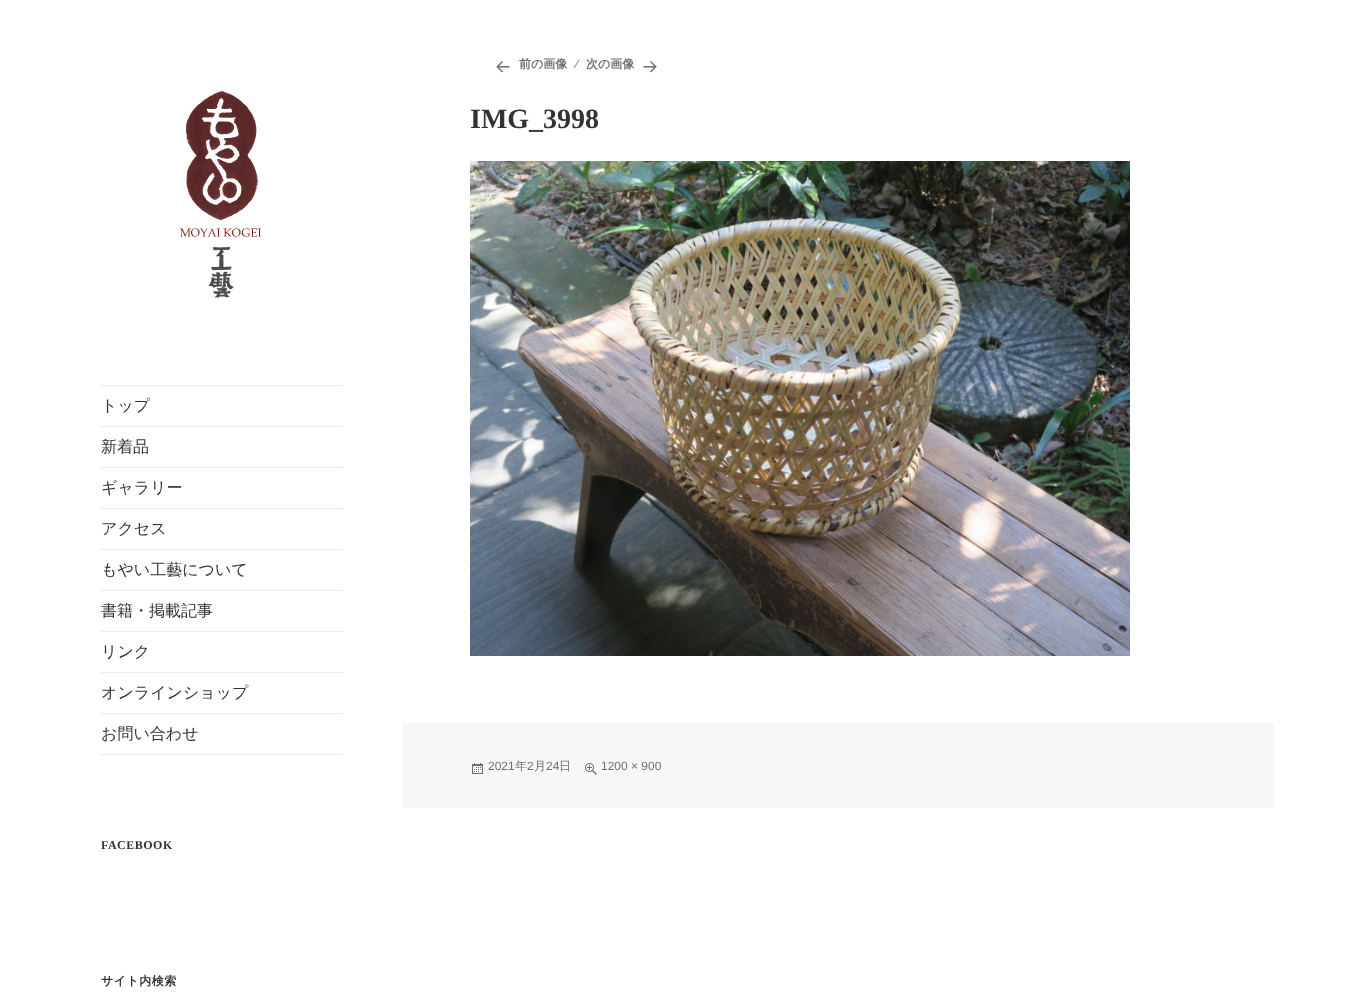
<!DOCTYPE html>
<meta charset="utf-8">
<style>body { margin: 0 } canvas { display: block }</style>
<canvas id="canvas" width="1371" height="998"></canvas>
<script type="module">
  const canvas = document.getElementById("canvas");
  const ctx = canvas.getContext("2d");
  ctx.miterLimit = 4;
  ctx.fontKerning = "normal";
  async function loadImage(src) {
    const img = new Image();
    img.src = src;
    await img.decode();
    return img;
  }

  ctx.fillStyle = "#ffffff";
  ctx.fillRect(0, 0, 1371, 998);
  ctx.drawImage(await loadImage("img1.png"), 180, 91, 81, 207);
  ctx.fillStyle = "#ebebeb";
  ctx.fillRect(101, 385, 242, 1);
  ctx.fillRect(101, 754, 242, 1);
  ctx.font = "500 16px WenQuanYi Zen Hei";
  ctx.fillStyle = "#333333";
  ctx.fillText("トップ", 101, 411);
  ctx.fillStyle = "#ebebeb";
  ctx.fillRect(101, 426, 242, 1);
  ctx.fillStyle = "#333333";
  ctx.fillText("新着品", 101, 452);
  ctx.fillStyle = "#ebebeb";
  ctx.fillRect(101, 467, 242, 1);
  ctx.fillStyle = "#333333";
  ctx.fillText("ギャラリー", 101, 493);
  ctx.fillStyle = "#ebebeb";
  ctx.fillRect(101, 508, 242, 1);
  ctx.fillStyle = "#333333";
  ctx.fillText("アクセス", 101, 534);
  ctx.fillStyle = "#ebebeb";
  ctx.fillRect(101, 549, 242, 1);
  ctx.fillStyle = "#333333";
  ctx.fillText("もやい工藝について", 101, 575);
  ctx.fillStyle = "#ebebeb";
  ctx.fillRect(101, 590, 242, 1);
  ctx.fillStyle = "#333333";
  ctx.fillText("書籍・掲載記事", 101, 616);
  ctx.fillStyle = "#ebebeb";
  ctx.fillRect(101, 631, 242, 1);
  ctx.fillStyle = "#333333";
  ctx.fillText("リンク", 101, 657);
  ctx.fillStyle = "#ebebeb";
  ctx.fillRect(101, 672, 242, 1);
  ctx.fillStyle = "#333333";
  ctx.fillText("オンラインショップ", 101, 698);
  ctx.fillStyle = "#ebebeb";
  ctx.fillRect(101, 713, 242, 1);
  ctx.fillStyle = "#333333";
  ctx.fillText("お問い合わせ", 101, 739);
  ctx.letterSpacing = "0.5px";
  ctx.font = "bold 12px Liberation Serif";
  ctx.fillText("FACEBOOK", 101, 849);
  ctx.font = "bold 12px WenQuanYi Zen Hei";
  ctx.fillText("サイト内検索", 101, 985);
  ctx.drawImage(await loadImage("img2.png"), 496, 61, 14, 12);
  ctx.letterSpacing = "0px";
  ctx.fillStyle = "#707070";
  ctx.fillText("前の画像", 519, 68);
  ctx.font = "12px Liberation Sans";
  ctx.fillText("∕", 576, 68);
  ctx.font = "bold 12px WenQuanYi Zen Hei";
  ctx.fillText("次の画像", 586, 68);
  ctx.drawImage(await loadImage("img3.png"), 643, 61, 14, 12);
  ctx.font = "bold 28px Liberation Serif";
  ctx.fillStyle = "#333333";
  ctx.fillText("IMG_3998", 470, 128);
  ctx.drawImage(await loadImage("img4.png"), 470, 161, 660, 495);
  ctx.fillStyle = "#f7f7f7";
  ctx.fillRect(403, 723, 871, 85);
  ctx.drawImage(await loadImage("img5.png"), 472, 763, 11, 11);
  ctx.font = "12px Liberation Sans";
  ctx.fillStyle = "#707070";
  ctx.fillText("2021", 488, 770);
  ctx.font = "500 12px WenQuanYi Zen Hei";
  ctx.fillText("年", 515, 770);
  ctx.font = "12px Liberation Sans";
  ctx.fillText("2", 527, 770);
  ctx.font = "500 12px WenQuanYi Zen Hei";
  ctx.fillText("月", 534, 770);
  ctx.font = "12px Liberation Sans";
  ctx.fillText("24", 546, 770);
  ctx.font = "500 12px WenQuanYi Zen Hei";
  ctx.fillText("日", 559, 770);
  ctx.drawImage(await loadImage("img6.png"), 585, 763, 12, 12);
  ctx.font = "12px Liberation Sans";
  ctx.fillText("1200 × 900", 601, 770);
</script>
